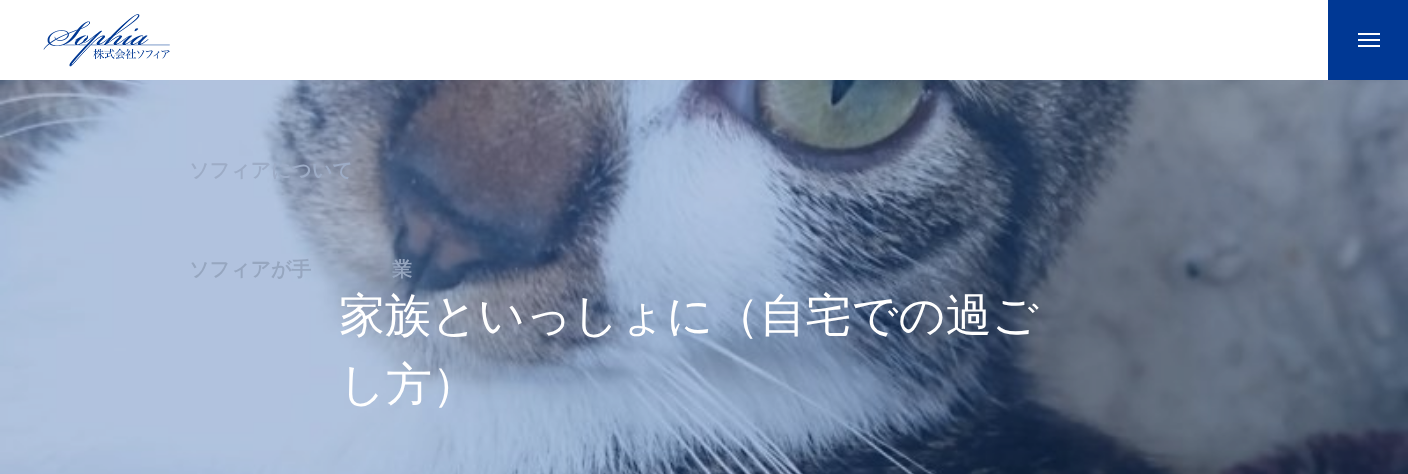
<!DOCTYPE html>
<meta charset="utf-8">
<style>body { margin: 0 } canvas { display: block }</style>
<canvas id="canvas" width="1408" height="474"></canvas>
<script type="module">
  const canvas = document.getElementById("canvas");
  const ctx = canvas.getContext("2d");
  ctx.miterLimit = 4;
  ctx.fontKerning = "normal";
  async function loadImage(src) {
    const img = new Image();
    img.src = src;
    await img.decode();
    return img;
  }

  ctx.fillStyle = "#ffffff";
  ctx.fillRect(0, 0, 1408, 474);
  ctx.drawImage(await loadImage("img1.png"), 43, 14, 127, 53);
  ctx.fillStyle = "#003894";
  ctx.fillRect(1328, 0, 80, 80);
  ctx.fillStyle = "#ffffff";
  ctx.fillRect(1358, 33, 22, 2);
  ctx.fillRect(1358, 39, 22, 2);
  ctx.fillRect(1358, 45, 22, 2);
  ctx.drawImage(await loadImage("img2.png"), 0, 80, 1408, 394);
  ctx.font = "bold 20px WenQuanYi Zen Hei";
  ctx.fillStyle = "#9dacc6";
  ctx.fillText("ソフィアについて", 189, 177);
  ctx.fillStyle = "#96a6bf";
  ctx.fillText("ソフィアが手", 189, 276);
  ctx.fillText("業", 392, 276);
  ctx.font = "500 46px WenQuanYi Zen Hei";
  ctx.fillStyle = "#ffffff";
  ctx.fillText("家族といっしょに（自宅での過ご", 339, 331);
  ctx.fillText("し方）", 339, 400);
</script>
